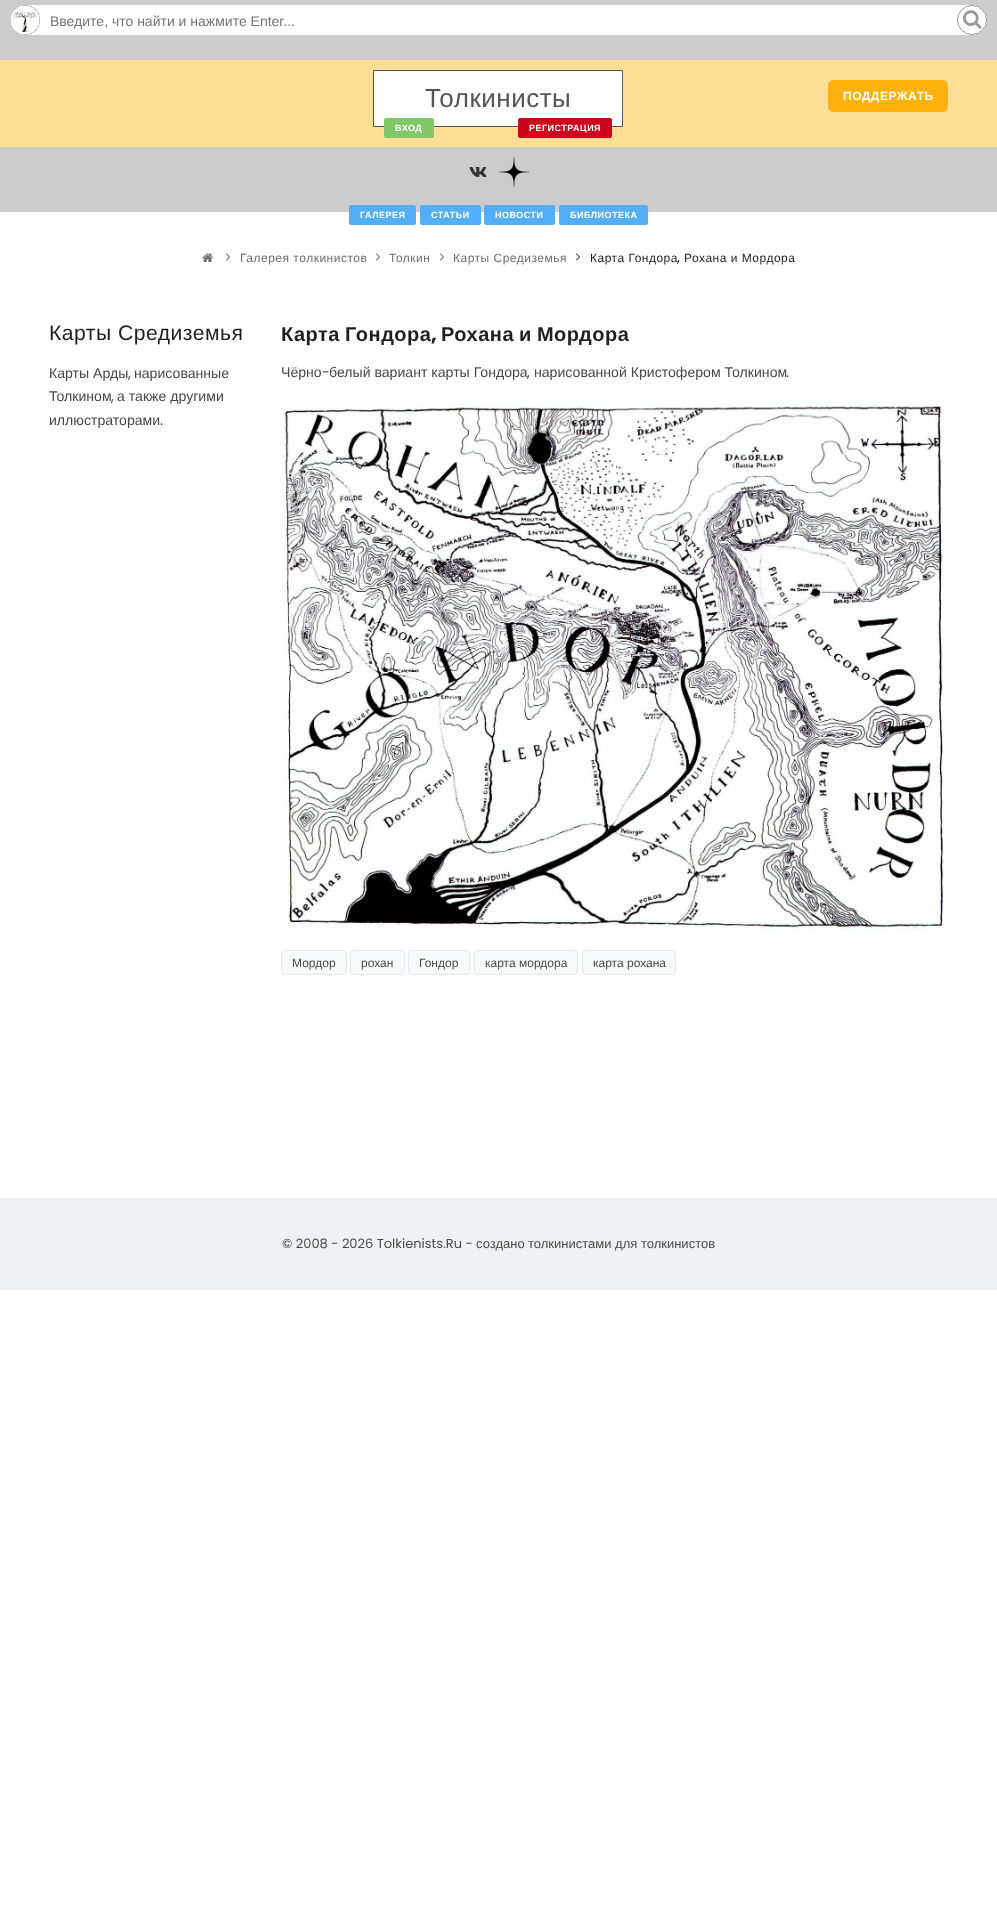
<!DOCTYPE html>
<meta charset="utf-8">
<style>body { margin: 0 } canvas { display: block }</style>
<canvas id="canvas" width="997" height="1925"></canvas>
<script type="module">
  const canvas = document.getElementById("canvas");
  const ctx = canvas.getContext("2d");
  ctx.miterLimit = 4;
  ctx.fontKerning = "normal";
  async function loadImage(src) {
    const img = new Image();
    img.src = src;
    await img.decode();
    return img;
  }

  ctx.fillStyle = "#ffffff";
  ctx.fillRect(0, 0, 997, 1925);
  ctx.fillStyle = "#cccccc";
  ctx.fillRect(0, 0, 997, 212);
  ctx.fillStyle = "#ffffff";
  ctx.beginPath();
  ctx.roundRect(10, 5, 977, 30, 15);
  ctx.fill();
  ctx.drawImage(await loadImage("img1.png"), 10, 5, 30, 30);
  ctx.font = "14px Liberation Sans";
  ctx.fillStyle = "#757575";
  ctx.fillText("Введите, что найти и нажмите Enter...", 50, 26);
  ctx.beginPath();
  ctx.arc(972, 20, 14.5, 0, Math.PI * 2);
  ctx.strokeStyle = "#999999";
  ctx.stroke();
  ctx.drawImage(await loadImage("img2.png"), 963, 10, 19, 19);
  ctx.fillStyle = "#fede97";
  ctx.fillRect(0, 60, 997, 87);
  ctx.fillStyle = "#ffffff";
  ctx.beginPath();
  ctx.rect(373.5, 70.5, 249, 56);
  ctx.fill();
  ctx.strokeStyle = "#555555";
  ctx.stroke();
  ctx.letterSpacing = "0.5px";
  ctx.font = "26px Liberation Sans";
  ctx.fillStyle = "#555555";
  ctx.fillText("Толкинисты", 425, 107);
  ctx.fillStyle = "#81c868";
  ctx.beginPath();
  ctx.roundRect(384.5, 118.5, 49, 19, 1.5);
  ctx.fill();
  ctx.strokeStyle = "#81c868";
  ctx.stroke();
  ctx.font = "bold 9px Liberation Sans";
  ctx.fillStyle = "#ffffff";
  ctx.fillText("ВХОД", 395, 131);
  ctx.fillStyle = "#ce041c";
  ctx.beginPath();
  ctx.roundRect(518.5, 118.5, 93, 19, 1.5);
  ctx.fill();
  ctx.strokeStyle = "#ce041c";
  ctx.stroke();
  ctx.fillStyle = "#ffffff";
  ctx.fillText("РЕГИСТРАЦИЯ", 529, 131);
  ctx.fillStyle = "#ffb20e";
  ctx.beginPath();
  ctx.roundRect(828.5, 80.5, 119, 31, 4.5);
  ctx.fill();
  ctx.strokeStyle = "#ffb20e";
  ctx.stroke();
  ctx.font = "bold 12px Liberation Sans";
  ctx.fillStyle = "#ffffff";
  ctx.fillText("ПОДДЕРЖАТЬ", 843, 100);
  ctx.drawImage(await loadImage("img3.png"), 469, 167, 18, 10);
  ctx.drawImage(await loadImage("img4.png"), 499, 157, 30, 30);
  ctx.fillStyle = "#53b0f8";
  ctx.beginPath();
  ctx.roundRect(349.5, 205.5, 66, 19, 1.5);
  ctx.fill();
  ctx.strokeStyle = "#53b0f8";
  ctx.stroke();
  ctx.font = "bold 9px Liberation Sans";
  ctx.fillStyle = "#ffffff";
  ctx.fillText("ГАЛЕРЕЯ", 360, 218);
  ctx.fillStyle = "#53b0f8";
  ctx.beginPath();
  ctx.roundRect(420.5, 205.5, 60, 19, 1.5);
  ctx.fill();
  ctx.stroke();
  ctx.fillStyle = "#ffffff";
  ctx.fillText("СТАТЬИ", 431, 218);
  ctx.fillStyle = "#53b0f8";
  ctx.beginPath();
  ctx.roundRect(484.5, 205.5, 70, 19, 1.5);
  ctx.fill();
  ctx.stroke();
  ctx.fillStyle = "#ffffff";
  ctx.fillText("НОВОСТИ", 495, 218);
  ctx.fillStyle = "#53b0f8";
  ctx.beginPath();
  ctx.roundRect(559.5, 205.5, 88, 19, 1.5);
  ctx.fill();
  ctx.stroke();
  ctx.fillStyle = "#ffffff";
  ctx.fillText("БИБЛИОТЕКА", 570, 218);
  ctx.drawImage(await loadImage("img5.png"), 202, 253, 11, 9);
  ctx.drawImage(await loadImage("img6.png"), 226, 253, 4, 8);
  ctx.font = "12px Liberation Sans";
  ctx.fillStyle = "#6d6d6d";
  ctx.fillText("Галерея толкинистов", 240, 262);
  ctx.drawImage(await loadImage("img6.png"), 376, 253, 4, 8);
  ctx.fillText("Толкин", 389, 262);
  ctx.drawImage(await loadImage("img6.png"), 440, 253, 4, 8);
  ctx.fillText("Карты Средиземья", 453, 262);
  ctx.drawImage(await loadImage("img7.png"), 576, 253, 4, 8);
  ctx.fillStyle = "#1f1f1f";
  ctx.fillText("Карта Гондора", 590, 262);
  ctx.font = "500 12px Poppins";
  ctx.fillText(",", 677, 262);
  ctx.font = "12px Liberation Sans";
  ctx.fillText("Рохана и Мордора", 684, 262);
  ctx.font = "21.1px Liberation Sans";
  ctx.fillText("Карты Средиземья", 49, 340);
  ctx.letterSpacing = "0px";
  ctx.font = "14.1px Liberation Sans";
  ctx.fillStyle = "#484848";
  ctx.fillText("Карты Арды", 49, 378);
  ctx.font = "14.1px Poppins";
  ctx.fillText(",", 128, 378);
  ctx.font = "14.1px Liberation Sans";
  ctx.fillText("нарисованные", 134, 378);
  ctx.fillText("Толкином", 49, 401);
  ctx.font = "14.1px Poppins";
  ctx.fillText(",", 111, 401);
  ctx.font = "14.1px Liberation Sans";
  ctx.fillText("а также другими", 117, 401);
  ctx.fillText("иллюстраторами", 49, 425);
  ctx.font = "14.1px Poppins";
  ctx.fillText(".", 160, 425);
  ctx.letterSpacing = "0.5px";
  ctx.wordSpacing = "-1px";
  ctx.font = "bold 20px Liberation Sans";
  ctx.fillStyle = "#1f1f1f";
  ctx.fillText("Карта Гондора", 281, 341);
  ctx.wordSpacing = "0px";
  ctx.font = "bold 20px Poppins";
  ctx.fillText(",", 431, 341);
  ctx.wordSpacing = "-1px";
  ctx.font = "bold 20px Liberation Sans";
  ctx.fillText("Рохана и Мордора", 441, 341);
  ctx.letterSpacing = "0px";
  ctx.wordSpacing = "0px";
  ctx.font = "14.1px Liberation Sans";
  ctx.fillStyle = "#484848";
  ctx.fillText("Чёрно", 281, 377);
  ctx.font = "14.1px Poppins";
  ctx.fillText("-", 322, 377);
  ctx.font = "14.1px Liberation Sans";
  ctx.fillText("белый вариант карты Гондора", 329, 377);
  ctx.fillText("нарисованной Кристофером Толкином", 534, 377);
  ctx.font = "14.1px Poppins";
  ctx.fillText(",", 527, 377);
  ctx.fillText(".", 786, 377);
  ctx.drawImage(await loadImage("img8.png"), 284, 404, 660, 527);
  ctx.fillStyle = "#f8f9fa";
  ctx.beginPath();
  ctx.roundRect(281.5, 950.5, 65, 24, 3.5);
  ctx.fill();
  ctx.strokeStyle = "#e6e8eb";
  ctx.stroke();
  ctx.font = "12px Liberation Sans";
  ctx.fillStyle = "#484848";
  ctx.fillText("Мордор", 292, 967);
  ctx.fillStyle = "#f8f9fa";
  ctx.beginPath();
  ctx.roundRect(350.5, 950.5, 54, 24, 3.5);
  ctx.fill();
  ctx.stroke();
  ctx.fillStyle = "#484848";
  ctx.fillText("рохан", 361, 967);
  ctx.fillStyle = "#f8f9fa";
  ctx.beginPath();
  ctx.roundRect(408.5, 950.5, 61, 24, 3.5);
  ctx.fill();
  ctx.stroke();
  ctx.fillStyle = "#484848";
  ctx.fillText("Гондор", 419, 967);
  ctx.fillStyle = "#f8f9fa";
  ctx.beginPath();
  ctx.roundRect(474.5, 950.5, 103, 24, 3.5);
  ctx.fill();
  ctx.stroke();
  ctx.fillStyle = "#484848";
  ctx.fillText("карта мордора", 485, 967);
  ctx.fillStyle = "#f8f9fa";
  ctx.beginPath();
  ctx.roundRect(582.5, 950.5, 93, 24, 3.5);
  ctx.fill();
  ctx.stroke();
  ctx.fillStyle = "#484848";
  ctx.fillText("карта рохана", 593, 967);
  ctx.fillStyle = "#eff1f4";
  ctx.fillRect(0, 1198, 997, 92);
  ctx.font = "13px Poppins";
  ctx.fillStyle = "#484848";
  ctx.fillText("© 2008 - 2026 Tolkienists.Ru -", 282, 1248);
  ctx.font = "13px Liberation Sans";
  ctx.fillText("создано", 476, 1248);
  ctx.fillText("толкинистами для толкинистов", 528, 1248);
</script>
